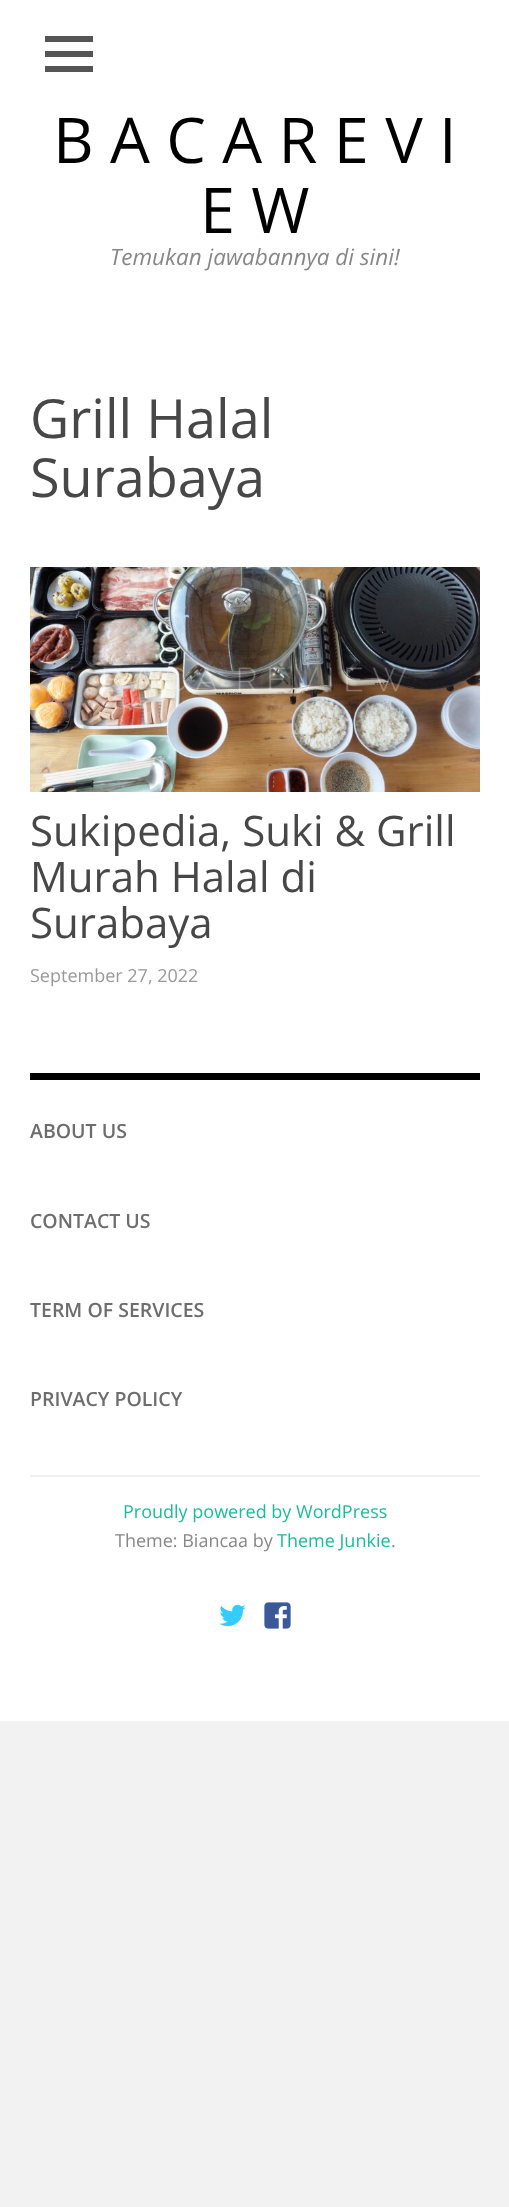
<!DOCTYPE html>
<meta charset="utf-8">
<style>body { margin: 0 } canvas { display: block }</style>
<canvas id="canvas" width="509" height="2207"></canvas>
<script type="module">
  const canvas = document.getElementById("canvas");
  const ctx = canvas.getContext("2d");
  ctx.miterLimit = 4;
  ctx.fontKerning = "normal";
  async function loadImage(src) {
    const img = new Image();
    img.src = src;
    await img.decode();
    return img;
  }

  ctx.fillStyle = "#f2f2f2";
  ctx.fillRect(0, 0, 509, 2207);
  ctx.fillStyle = "#ffffff";
  ctx.fillRect(0, 0, 509, 1721);
  ctx.fillStyle = "#555555";
  ctx.beginPath();
  ctx.moveTo(45, 72);
  ctx.lineTo(45, 66);
  ctx.lineTo(93, 66);
  ctx.lineTo(93, 72);
  ctx.closePath();
  ctx.moveTo(45, 36);
  ctx.lineTo(93, 36);
  ctx.lineTo(93, 42);
  ctx.lineTo(45, 42);
  ctx.closePath();
  ctx.moveTo(45, 57);
  ctx.lineTo(45, 51);
  ctx.lineTo(93, 51);
  ctx.lineTo(93, 57);
  ctx.closePath();
  ctx.fill();
  ctx.font = "63px Open Sans";
  ctx.fillStyle = "#000000";
  ctx.fillText("B A C A R E V I", 53, 163);
  ctx.fillText("E W", 200, 233);
  ctx.font = "italic 22.5px Open Sans";
  ctx.fillStyle = "#878787";
  ctx.fillText("Temukan jawabannya di sini!", 110, 265);
  ctx.font = "54px Open Sans";
  ctx.fillStyle = "#474747";
  ctx.fillText("Grill Halal", 30, 438);
  ctx.fillText("Surabaya", 30, 497);
  ctx.drawImage(await loadImage("img1.png"), 30, 567, 450, 225);
  ctx.font = "42px Open Sans";
  ctx.fillText("Sukipedia, Suki & Grill", 30, 846);
  ctx.fillText("Murah Halal di", 30, 892);
  ctx.fillText("Surabaya", 30, 938);
  ctx.font = "18px Open Sans";
  ctx.fillStyle = "#999999";
  ctx.fillText("September 27, 2022", 30, 982);
  ctx.fillStyle = "#000000";
  ctx.fillRect(30, 1073, 450, 7);
  ctx.fillStyle = "#efefef";
  ctx.fillRect(30, 1475, 450, 2);
  ctx.font = "600 19.5px Open Sans";
  ctx.fillStyle = "#6e6d6d";
  ctx.fillText("ABOUT US", 30, 1138);
  ctx.fillText("CONTACT US", 30, 1228);
  ctx.fillText("TERM OF SERVICES", 30, 1317);
  ctx.fillText("PRIVACY POLICY", 30, 1406);
  ctx.font = "18px Open Sans";
  ctx.fillStyle = "#1abc9c";
  ctx.fillText("Proudly powered by WordPress", 123, 1518);
  ctx.fillStyle = "#878787";
  ctx.fillText("Theme: Biancaa by", 115, 1547);
  ctx.fillStyle = "#1abc9c";
  ctx.fillText("Theme Junkie", 277, 1547);
  ctx.fillStyle = "#878787";
  ctx.fillText(".", 391, 1547);
  ctx.drawImage(await loadImage("img2.png"), 219, 1604, 27, 23);
  ctx.drawImage(await loadImage("img3.png"), 264, 1602, 27, 27);
</script>
